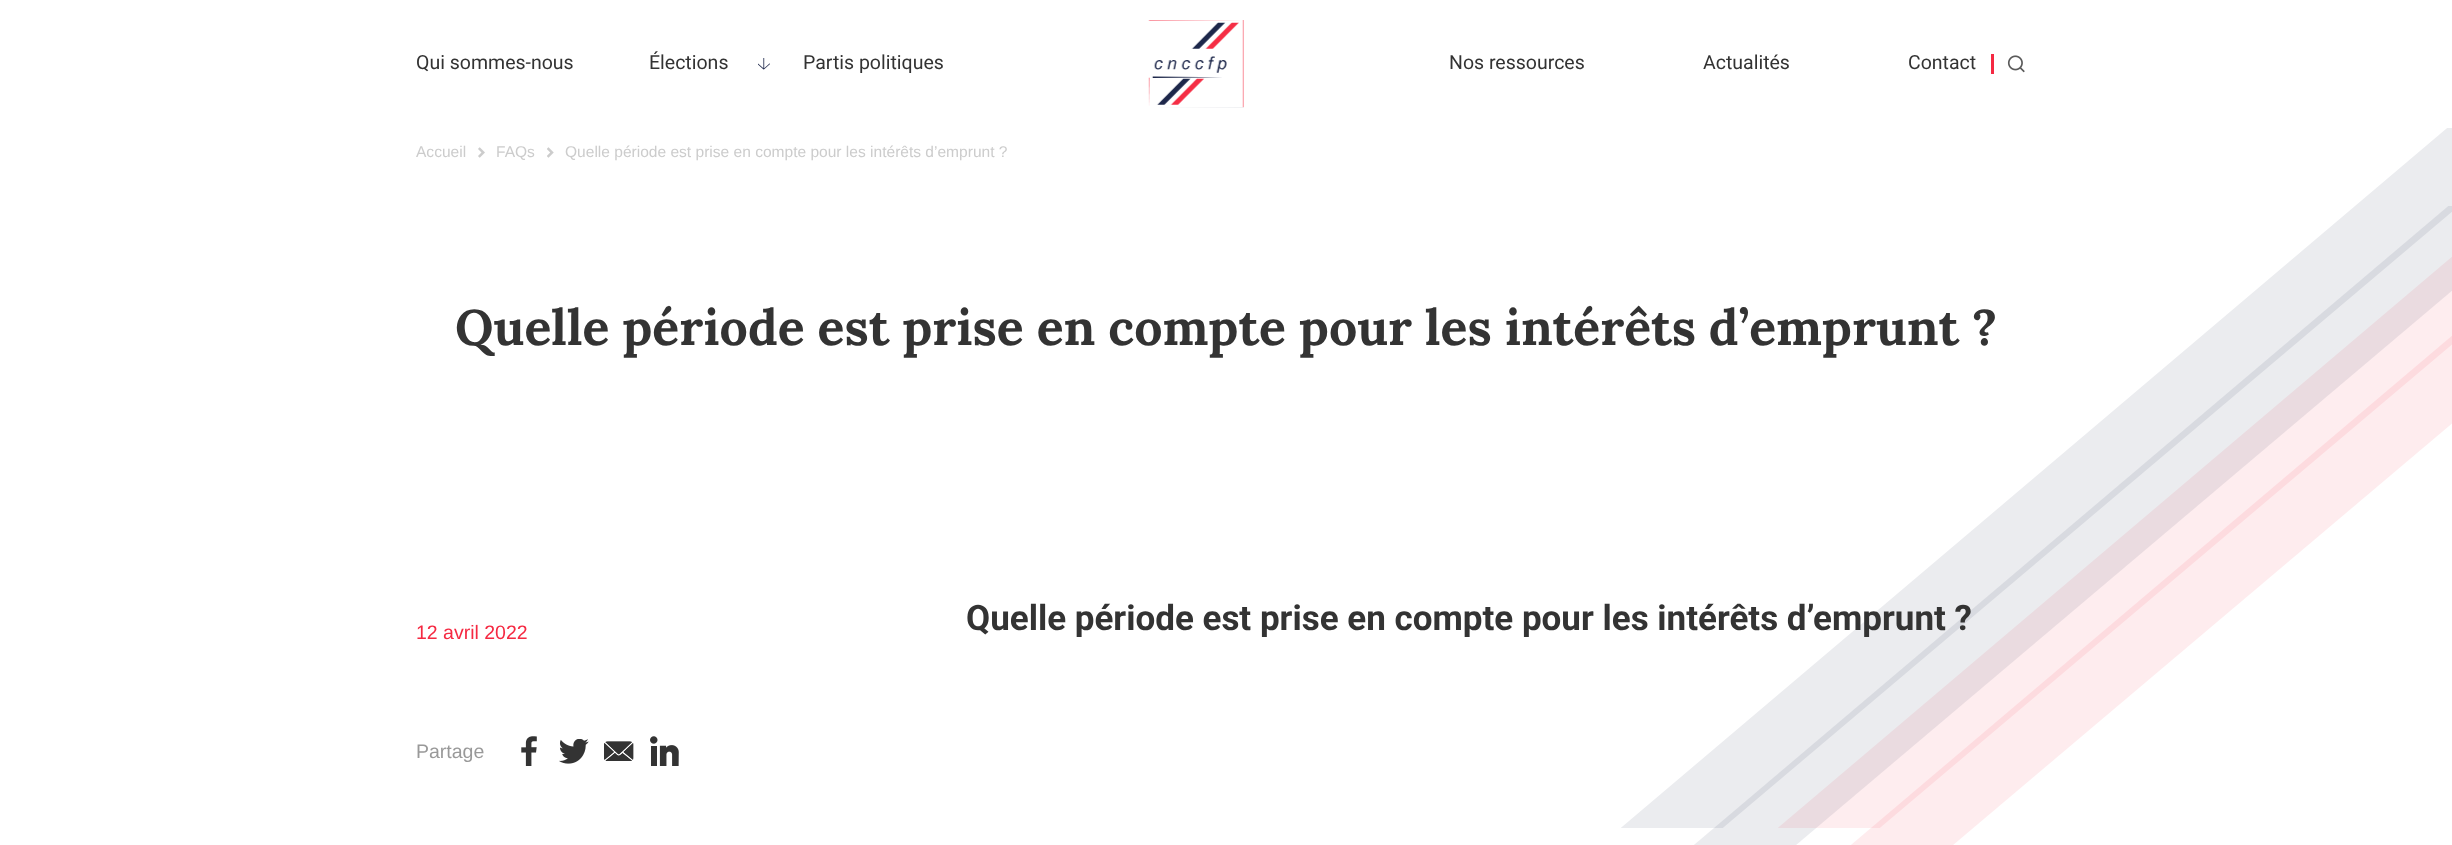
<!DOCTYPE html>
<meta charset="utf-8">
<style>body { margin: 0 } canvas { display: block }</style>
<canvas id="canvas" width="2452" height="845"></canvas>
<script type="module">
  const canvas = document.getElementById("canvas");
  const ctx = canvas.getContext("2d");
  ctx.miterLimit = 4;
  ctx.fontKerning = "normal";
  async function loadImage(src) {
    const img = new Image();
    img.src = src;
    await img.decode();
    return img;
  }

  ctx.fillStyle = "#ffffff";
  ctx.fillRect(0, 0, 2452, 845);
  ctx.font = "19.5px Roboto";
  ctx.fillStyle = "#333333";
  ctx.fillText("Qui sommes-nous", 416, 69);
  ctx.fillText("Élections", 649, 69);
  ctx.drawImage(await loadImage("img1.png"), 758, 58, 12, 12);
  ctx.fillText("Partis politiques", 803, 69);
  ctx.drawImage(await loadImage("img2.png"), 1148, 20, 96, 88);
  ctx.fillText("Nos ressources", 1449, 69);
  ctx.fillText("Actualités", 1703, 69);
  ctx.fillText("Contact", 1908, 69);
  ctx.fillStyle = "#f52942";
  ctx.fillRect(1991, 54, 3, 20);
  ctx.drawImage(await loadImage("img3.png"), 2007, 55, 18, 18);
  ctx.font = "15.55px Liberation Sans";
  ctx.fillStyle = "#cccccc";
  ctx.fillText("Accueil", 416, 157);
  ctx.drawImage(await loadImage("img4.png"), 478, 147, 7, 11);
  ctx.fillText("FAQs", 496, 157);
  ctx.drawImage(await loadImage("img5.png"), 547, 147, 7, 11);
  ctx.fillText("Quelle période est prise en compte pour les intérêts d’emprunt ?", 565, 157);
  ctx.save();
  ctx.beginPath();
  ctx.rect(1603, 128, 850, 700);
  ctx.clip();
  ctx.fillStyle = "#ebecef";
  ctx.beginPath();
  ctx.moveTo(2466, 112);
  ctx.lineTo(1603, 843);
  ctx.lineTo(1705, 843);
  ctx.lineTo(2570, 112);
  ctx.closePath();
  ctx.fill();
  ctx.fillStyle = "#feedef";
  ctx.beginPath();
  ctx.moveTo(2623, 112);
  ctx.lineTo(1760, 843);
  ctx.lineTo(1862, 843);
  ctx.lineTo(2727, 112);
  ctx.closePath();
  ctx.fill();
  ctx.restore();
  ctx.save();
  ctx.beginPath();
  ctx.rect(1603, 206, 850, 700);
  ctx.clip();
  ctx.fillStyle = "rgba(29, 39, 74, 0.09)";
  ctx.beginPath();
  ctx.moveTo(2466, 191);
  ctx.lineTo(1603, 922);
  ctx.lineTo(1705, 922);
  ctx.lineTo(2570, 191);
  ctx.closePath();
  ctx.fill();
  ctx.restore();
  ctx.fillStyle = "rgba(245, 46, 69, 0.09)";
  ctx.beginPath();
  ctx.moveTo(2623, 191);
  ctx.lineTo(1760, 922);
  ctx.lineTo(1862, 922);
  ctx.lineTo(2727, 191);
  ctx.closePath();
  ctx.fill();
  ctx.wordSpacing = "-0.25px";
  ctx.font = "bold 50px Lora";
  ctx.fillStyle = "#333333";
  ctx.fillText("Quelle période est prise en compte pour les intérêts d’emprunt ?", 455, 345);
  ctx.wordSpacing = "0px";
  ctx.font = "bold 35px Roboto";
  ctx.fillText("Quelle période est prise en compte pour les intérêts d’emprunt ?", 966, 630);
  ctx.font = "19.5px Liberation Sans";
  ctx.fillStyle = "#f52942";
  ctx.fillText("12 avril 2022", 416, 639);
  ctx.fillStyle = "#999999";
  ctx.fillText("Partage", 416, 758);
  ctx.drawImage(await loadImage("img6.png"), 521, 736, 16, 30);
  ctx.drawImage(await loadImage("img7.png"), 559, 739, 30, 25);
  ctx.drawImage(await loadImage("img8.png"), 604, 741, 30, 20);
  ctx.drawImage(await loadImage("img9.png"), 650, 736, 29, 30);
</script>
